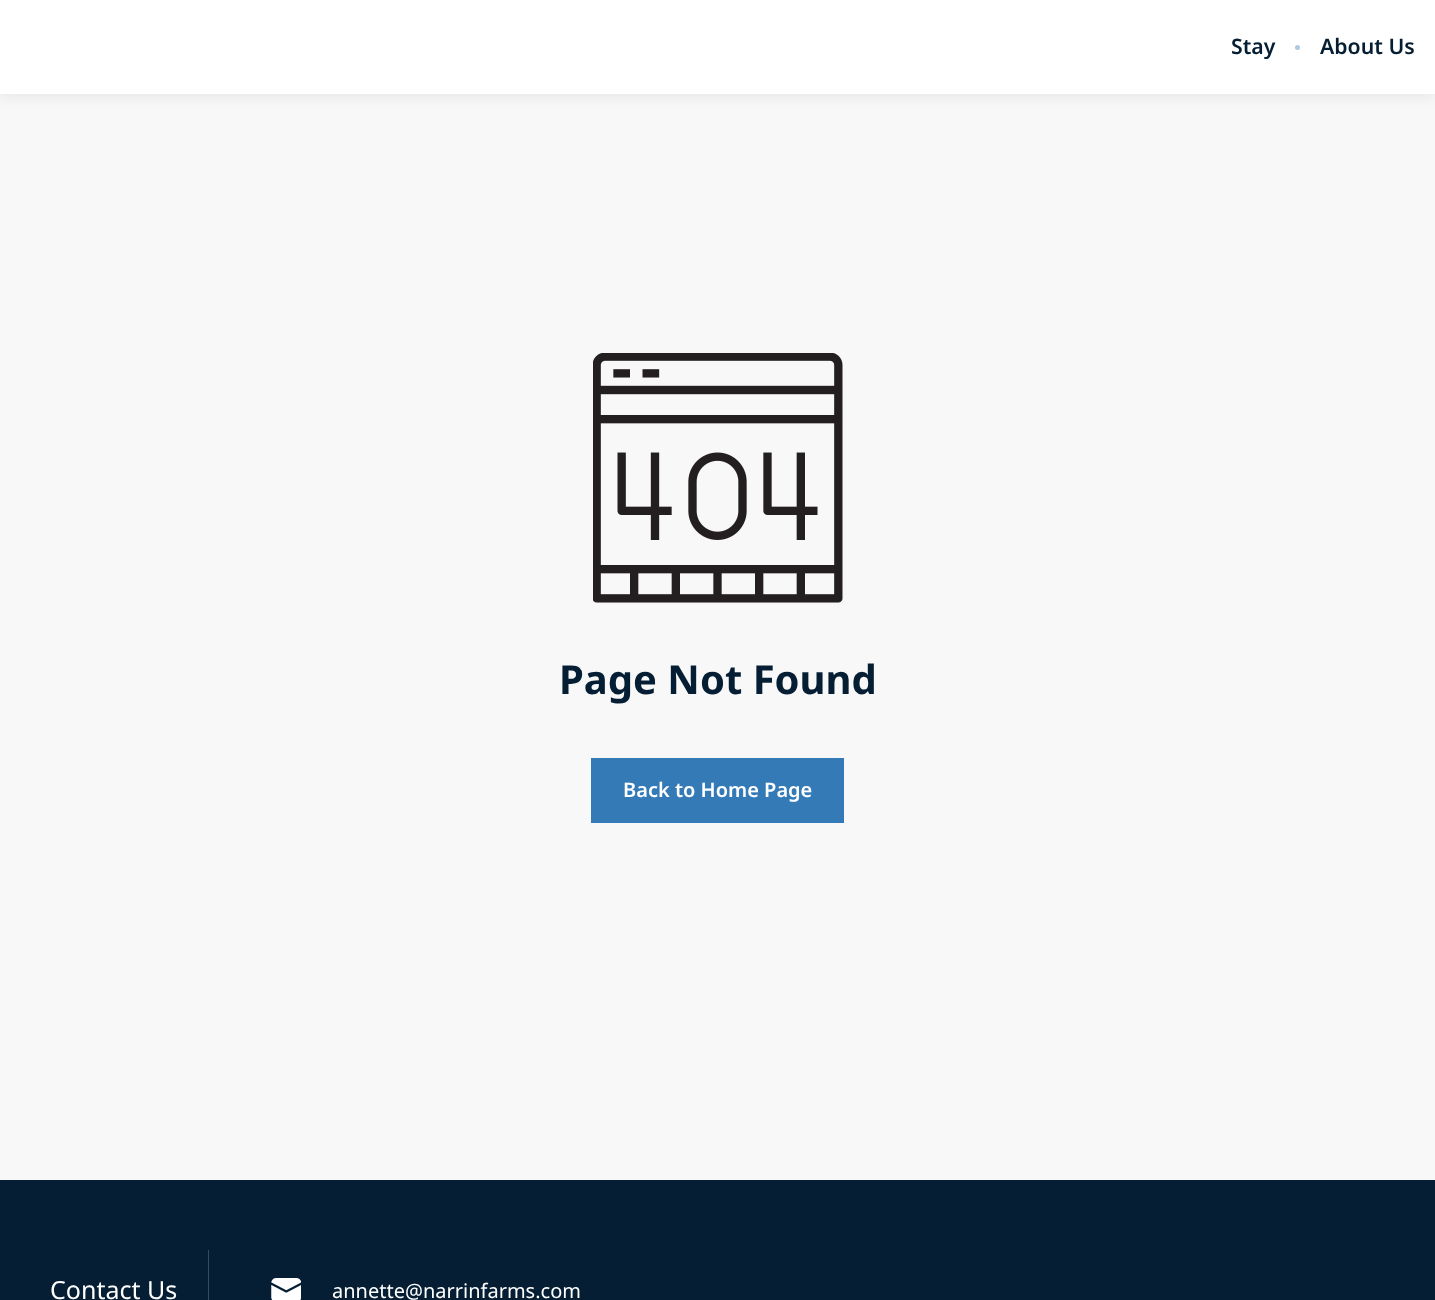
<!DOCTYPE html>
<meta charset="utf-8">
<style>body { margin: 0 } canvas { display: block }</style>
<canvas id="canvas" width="1435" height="1300"></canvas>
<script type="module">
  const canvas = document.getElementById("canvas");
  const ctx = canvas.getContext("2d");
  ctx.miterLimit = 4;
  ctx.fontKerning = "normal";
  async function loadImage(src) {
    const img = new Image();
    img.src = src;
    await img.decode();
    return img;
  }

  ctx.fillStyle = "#f8f8f8";
  ctx.fillRect(0, 0, 1435, 1300);
  ctx.fillStyle = "rgba(0, 0, 0, 0.08)";
  ctx.filter = "blur(7.5px)";
  ctx.beginPath();
  ctx.rect(0, 3, 1435, 93);
  ctx.fill();
  ctx.filter = "none";
  ctx.fillStyle = "#ffffff";
  ctx.fillRect(0, 0, 1435, 94);
  ctx.font = "600 21.25px Noto Sans";
  ctx.fillStyle = "#051e33";
  ctx.fillText("Stay", 1231, 54);
  ctx.fillStyle = "#adcae2";
  ctx.beginPath();
  ctx.arc(1297.5, 47.5, 2.5, 0, Math.PI * 2);
  ctx.fill();
  ctx.fillStyle = "#051e33";
  ctx.fillText("About Us", 1320, 54);
  ctx.drawImage(await loadImage("img1.png"), 593, 353, 250, 250);
  ctx.font = "bold 40px Noto Sans";
  ctx.fillText("Page Not Found", 559, 694);
  ctx.fillStyle = "#337ab7";
  ctx.fillRect(591, 758, 253, 65);
  ctx.font = "600 20px Noto Sans";
  ctx.fillStyle = "#ffffff";
  ctx.fillText("Back to Home Page", 623, 797);
  ctx.fillStyle = "#051e33";
  ctx.fillRect(0, 1180, 1435, 120);
  ctx.font = "25px Noto Sans";
  ctx.fillStyle = "#ffffff";
  ctx.fillText("Contact Us", 50, 1299);
  ctx.fillStyle = "#374b5c";
  ctx.fillRect(208, 1250, 1, 50);
  ctx.drawImage(await loadImage("img2.png"), 271, 1278, 30, 22);
  ctx.font = "20px Noto Sans";
  ctx.fillStyle = "#ffffff";
  ctx.fillText("annette@narrinfarms.com", 332, 1298);
</script>
